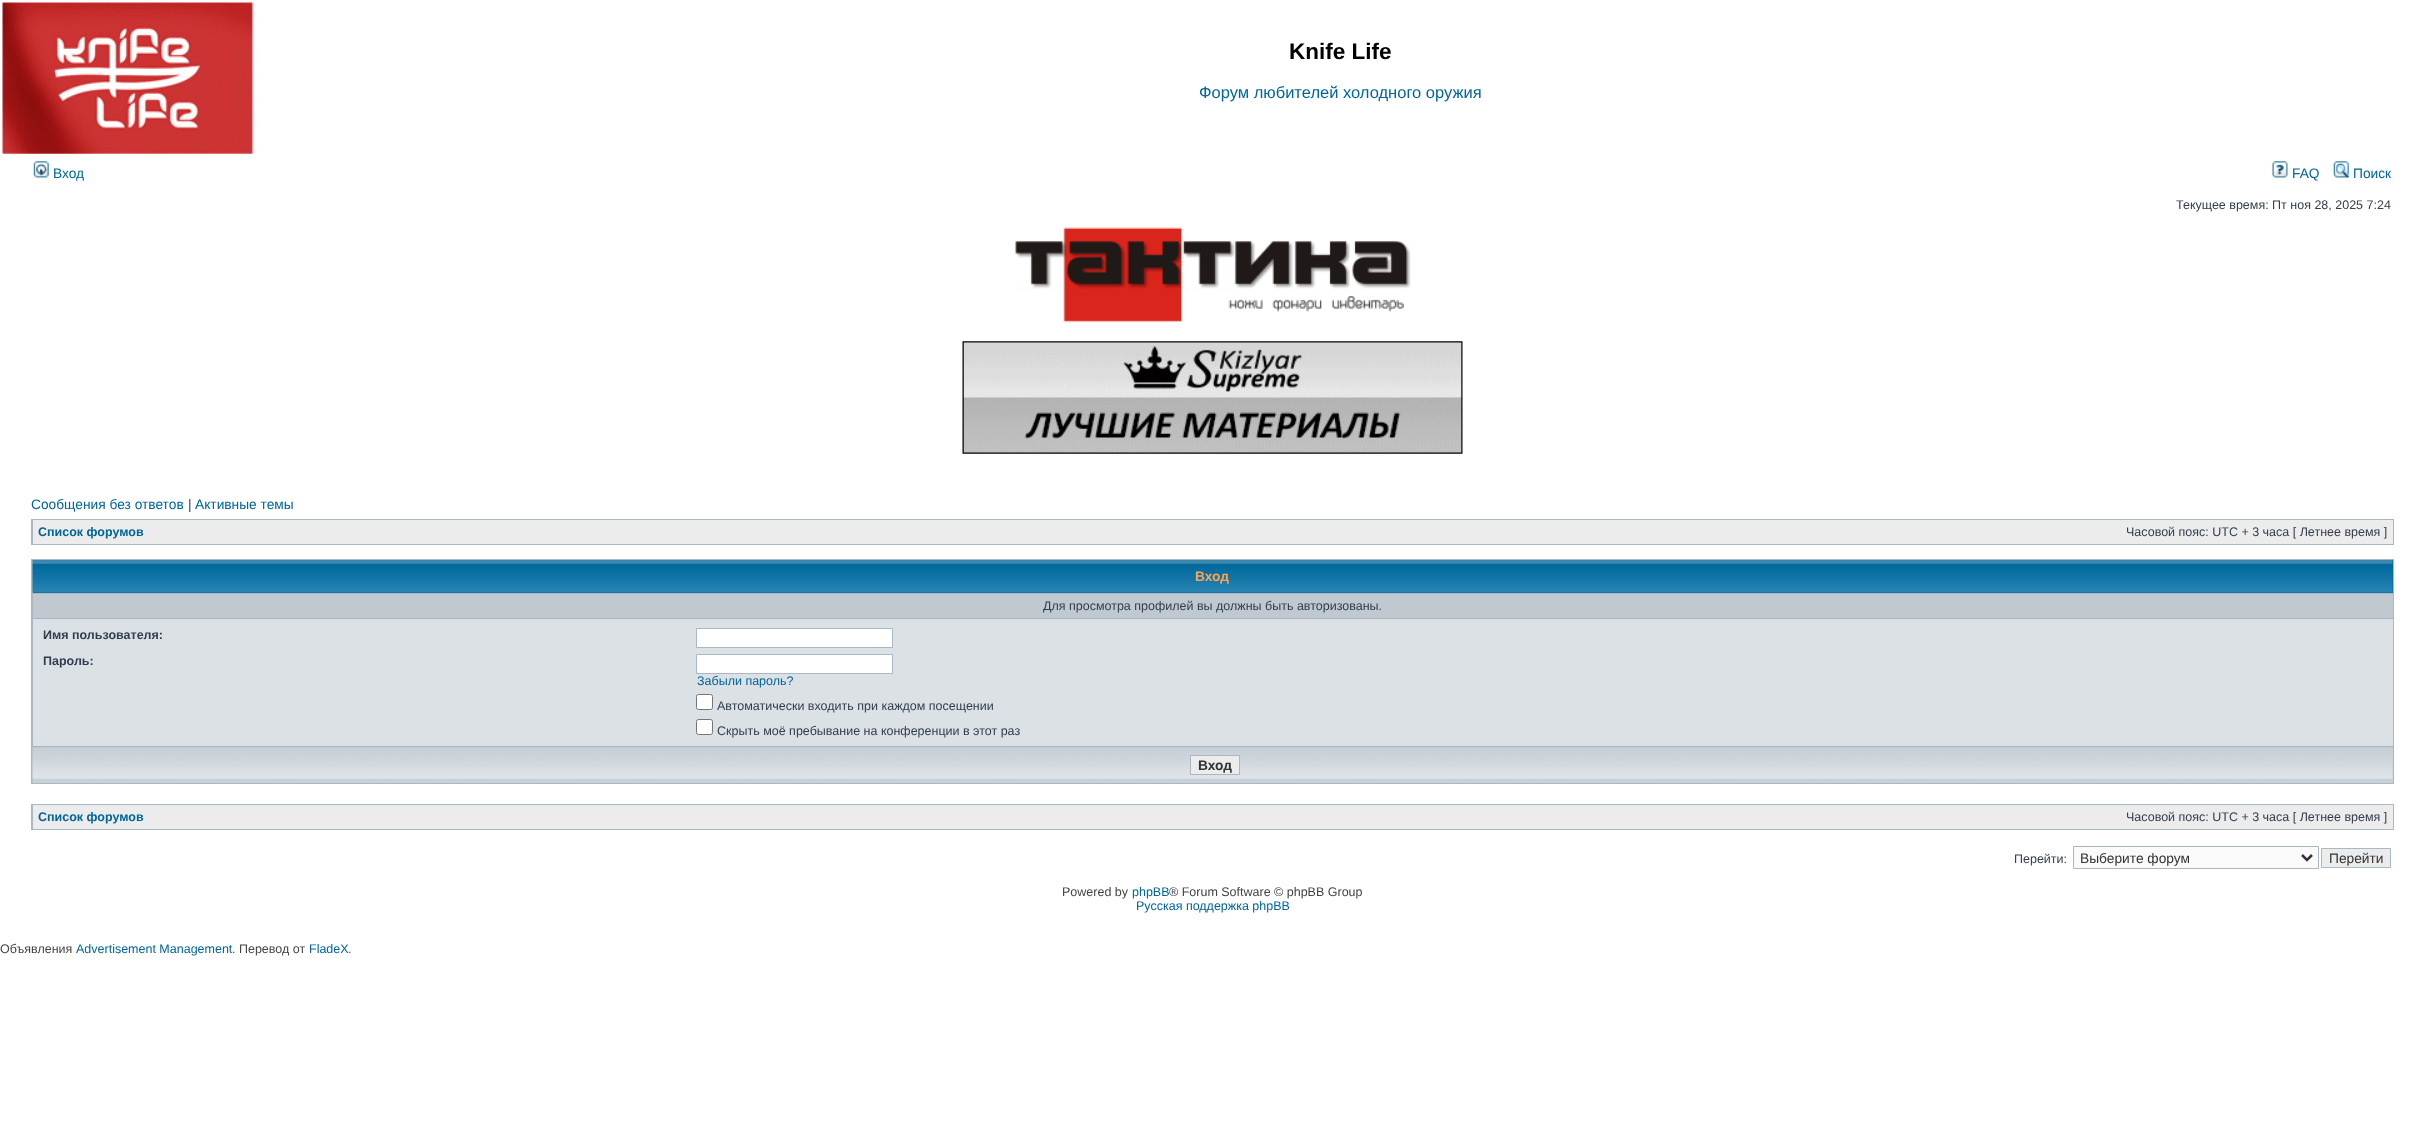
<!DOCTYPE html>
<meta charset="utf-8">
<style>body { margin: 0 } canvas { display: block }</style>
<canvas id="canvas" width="2425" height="1139"></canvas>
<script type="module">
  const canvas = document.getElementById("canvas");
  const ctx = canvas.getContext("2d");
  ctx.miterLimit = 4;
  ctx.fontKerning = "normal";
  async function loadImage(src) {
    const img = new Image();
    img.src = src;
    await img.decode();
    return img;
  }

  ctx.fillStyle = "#ffffff";
  ctx.fillRect(0, 0, 2425, 1139);
  ctx.drawImage(await loadImage("img1.png"), 2, 2, 251, 152);
  ctx.font = "bold 22.5px Liberation Sans";
  ctx.fillStyle = "#000000";
  ctx.fillText("Knife Life", 1289, 59);
  ctx.font = "16.5px Liberation Sans";
  ctx.fillStyle = "#006597";
  ctx.fillText("Форум любителей холодного оружия", 1199, 98);
  ctx.drawImage(await loadImage("img2.png"), 33, 161, 16, 17);
  ctx.font = "13.75px Liberation Sans";
  ctx.fillText("Вход", 53, 178);
  ctx.drawImage(await loadImage("img3.png"), 2272, 161, 16, 17);
  ctx.fillText("FAQ", 2292, 178);
  ctx.drawImage(await loadImage("img4.png"), 2333, 161, 16, 17);
  ctx.fillText("Поиск", 2353, 178);
  ctx.font = "12.5px Liberation Sans";
  ctx.fillStyle = "#323d4f";
  ctx.fillText("Текущее время: Пт ноя 28, 2025 7:24", 2176, 209);
  ctx.drawImage(await loadImage("img5.png"), 1014, 227, 397, 96);
  ctx.drawImage(await loadImage("img6.png"), 962, 341, 501, 113);
  ctx.font = "13.75px Liberation Sans";
  ctx.fillStyle = "#006597";
  ctx.fillText("Сообщения без ответов", 31, 509);
  ctx.fillStyle = "#323d4f";
  ctx.fillText("|", 188, 509);
  ctx.fillStyle = "#006597";
  ctx.fillText("Активные темы", 195, 509);
  ctx.fillStyle = "#a9b8c2";
  ctx.fillRect(31, 519, 2363, 26);
  ctx.fillStyle = "#ececec";
  ctx.fillRect(33, 520, 2360, 24);
  ctx.font = "bold 12.5px Liberation Sans";
  ctx.fillStyle = "#006597";
  ctx.fillText("Список форумов", 38, 536);
  ctx.font = "12.5px Liberation Sans";
  ctx.fillStyle = "#323d4f";
  ctx.fillText("Часовой пояс: UTC + 3 часа [ Летнее время ]", 2126, 536);
  ctx.fillStyle = "#a9b8c2";
  ctx.fillRect(31, 559, 2363, 225);
  ctx.fillStyle = "#006699";
  ctx.fillRect(33, 560, 2360, 33);
  ctx.drawImage(await loadImage("img7.png"), 32, 560, 2361, 33);
  ctx.font = "bold 13.75px Liberation Sans";
  ctx.fillStyle = "#ffa34f";
  ctx.fillText("Вход", 1195, 581);
  ctx.fillStyle = "#c0c8d0";
  ctx.fillRect(33, 594, 2360, 24);
  ctx.font = "12.5px Liberation Sans";
  ctx.fillStyle = "#323d4f";
  ctx.fillText("Для просмотра профилей вы должны быть авторизованы.", 1043, 610);
  ctx.fillStyle = "#dce1e5";
  ctx.fillRect(33, 619, 2360, 127);
  ctx.font = "bold 12.5px Liberation Sans";
  ctx.fillStyle = "#323d4f";
  ctx.fillText("Имя пользователя:", 43, 639);
  ctx.fillStyle = "#ffffff";
  ctx.beginPath();
  ctx.rect(696.5, 628.5, 196, 19);
  ctx.fill();
  ctx.strokeStyle = "#a9b8c2";
  ctx.stroke();
  ctx.fillStyle = "#323d4f";
  ctx.fillText("Пароль:", 43, 665);
  ctx.fillStyle = "#ffffff";
  ctx.beginPath();
  ctx.rect(696.5, 654.5, 196, 19);
  ctx.fill();
  ctx.stroke();
  ctx.font = "12.5px Liberation Sans";
  ctx.fillStyle = "#006597";
  ctx.fillText("Забыли пароль?", 697, 685);
  ctx.fillStyle = "#ffffff";
  ctx.beginPath();
  ctx.roundRect(696.5, 694.5, 16, 15, 2);
  ctx.fill();
  ctx.strokeStyle = "#767676";
  ctx.stroke();
  ctx.fillStyle = "#323d4f";
  ctx.fillText("Автоматически входить при каждом посещении", 717, 710);
  ctx.fillStyle = "#ffffff";
  ctx.beginPath();
  ctx.roundRect(696.5, 719.5, 16, 15, 2);
  ctx.fill();
  ctx.stroke();
  ctx.fillStyle = "#323d4f";
  ctx.fillText("Скрыть моё пребывание на конференции в этот раз", 717, 735);
  ctx.fillStyle = "#c7d0d7";
  ctx.fillRect(33, 748, 2360, 35);
  ctx.drawImage(await loadImage("img8.png"), 32, 747, 2361, 36);
  ctx.fillStyle = "#ececec";
  ctx.beginPath();
  ctx.rect(1190.5, 755.5, 49, 19);
  ctx.fill();
  ctx.strokeStyle = "#a9b8c2";
  ctx.stroke();
  ctx.font = "bold 13.75px Liberation Sans";
  ctx.fillStyle = "#333333";
  ctx.fillText("Вход", 1198, 770);
  ctx.fillStyle = "#a9b8c2";
  ctx.fillRect(31, 804, 2363, 26);
  ctx.fillStyle = "#ececec";
  ctx.fillRect(33, 805, 2360, 24);
  ctx.font = "bold 12.5px Liberation Sans";
  ctx.fillStyle = "#006597";
  ctx.fillText("Список форумов", 38, 821);
  ctx.font = "12.5px Liberation Sans";
  ctx.fillStyle = "#323d4f";
  ctx.fillText("Часовой пояс: UTC + 3 часа [ Летнее время ]", 2126, 821);
  ctx.fillText("Перейти:", 2014, 863);
  ctx.fillStyle = "#fafafa";
  ctx.beginPath();
  ctx.rect(2073.5, 846.5, 245, 22);
  ctx.fill();
  ctx.stroke();
  ctx.beginPath();
  ctx.moveTo(2302, 855);
  ctx.lineTo(2307, 860);
  ctx.lineTo(2312, 855);
  ctx.strokeStyle = "#333333";
  ctx.lineWidth = 2.5;
  ctx.stroke();
  ctx.font = "13.75px Liberation Sans";
  ctx.fillStyle = "#333333";
  ctx.fillText("Выберите форум", 2080, 863);
  ctx.fillStyle = "#ececec";
  ctx.beginPath();
  ctx.rect(2321.5, 848.5, 69, 19);
  ctx.fill();
  ctx.strokeStyle = "#a9b8c2";
  ctx.lineWidth = 1;
  ctx.stroke();
  ctx.fillStyle = "#333333";
  ctx.fillText("Перейти", 2329, 863);
  ctx.font = "12.5px Liberation Sans";
  ctx.fillStyle = "#444444";
  ctx.fillText("Powered by", 1062, 896);
  ctx.fillStyle = "#006597";
  ctx.fillText("phpBB", 1132, 896);
  ctx.fillStyle = "#444444";
  ctx.fillText("® Forum Software © phpBB Group", 1169, 896);
  ctx.fillStyle = "#006597";
  ctx.fillText("Русская поддержка phpBB", 1136, 910);
  ctx.fillStyle = "#444444";
  ctx.fillText("Объявления", 0, 953);
  ctx.fillStyle = "#006597";
  ctx.fillText("Advertisement Management", 76, 953);
  ctx.fillStyle = "#444444";
  ctx.fillText(". Перевод от", 232, 953);
  ctx.fillStyle = "#006597";
  ctx.fillText("FladeX", 309, 953);
  ctx.fillStyle = "#444444";
  ctx.fillText(".", 348, 953);
</script>
